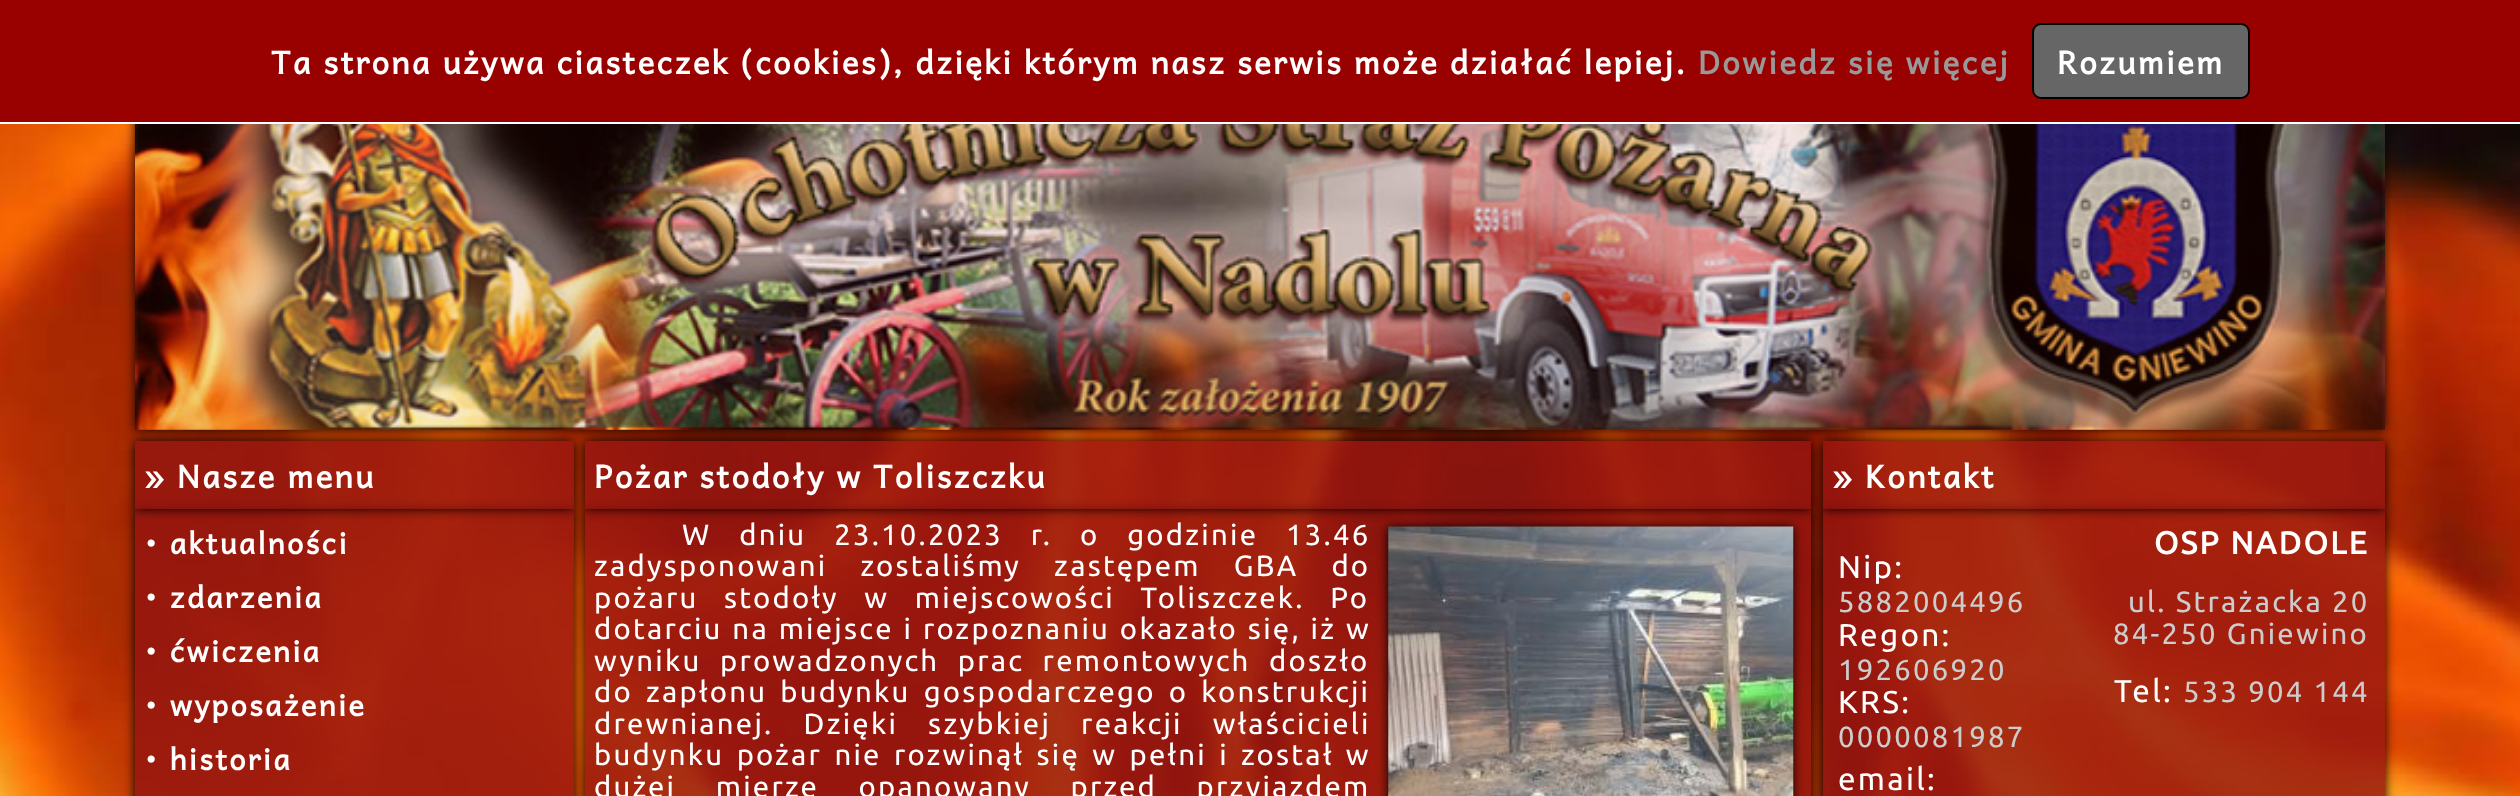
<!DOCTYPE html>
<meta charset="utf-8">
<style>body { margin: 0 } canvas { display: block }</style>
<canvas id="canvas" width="2520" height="796"></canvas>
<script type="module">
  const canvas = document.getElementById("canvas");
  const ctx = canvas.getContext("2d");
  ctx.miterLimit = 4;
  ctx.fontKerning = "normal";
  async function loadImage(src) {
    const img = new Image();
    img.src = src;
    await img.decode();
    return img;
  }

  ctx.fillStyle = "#ffffff";
  ctx.fillRect(0, 0, 2520, 796);
  ctx.drawImage(await loadImage("img1.png"), 0, 124, 2520, 672);
  ctx.save();
  ctx.beginPath();
  ctx.moveTo(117, 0);
  ctx.lineTo(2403, 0);
  ctx.lineTo(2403, 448);
  ctx.lineTo(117, 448);
  ctx.closePath();
  ctx.moveTo(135, 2);
  ctx.lineTo(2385, 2);
  ctx.lineTo(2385, 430);
  ctx.lineTo(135, 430);
  ctx.closePath();
  ctx.clip("evenodd");
  ctx.fillStyle = "rgba(0, 0, 0, 0.9)";
  ctx.filter = "blur(5.5px)";
  ctx.beginPath();
  ctx.rect(135, 2, 2250, 428);
  ctx.fill();
  ctx.filter = "none";
  ctx.restore();
  ctx.fillStyle = "#990000";
  ctx.fillRect(0, 0, 2520, 122);
  ctx.fillStyle = "#ffffff";
  ctx.fillRect(122, 122, 2276, 2);
  ctx.letterSpacing = "2.25px";
  ctx.font = "bold 31.5px Andika";
  ctx.fillText("Ta strona używa ciasteczek (cookies), dzięki którym nasz serwis może działać lepiej.", 271, 74);
  ctx.fillStyle = "#999999";
  ctx.fillText("Dowiedz się więcej", 1698, 74);
  ctx.fillStyle = "#666666";
  ctx.beginPath();
  ctx.roundRect(2033, 24, 216, 74, 8);
  ctx.fill();
  ctx.strokeStyle = "#000000";
  ctx.lineWidth = 2;
  ctx.stroke();
  ctx.fillStyle = "#ffffff";
  ctx.fillText("Rozumiem", 2057, 74);
  ctx.fillStyle = "rgba(144, 0, 0, 0.54)";
  ctx.fillRect(135, 124, 2250, 306);
  ctx.drawImage(await loadImage("img2.png"), 135, 124, 2250, 306);
  ctx.save();
  ctx.beginPath();
  ctx.moveTo(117, 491);
  ctx.lineTo(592, 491);
  ctx.lineTo(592, 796);
  ctx.lineTo(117, 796);
  ctx.closePath();
  ctx.moveTo(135, 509);
  ctx.lineTo(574, 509);
  ctx.lineTo(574, 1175);
  ctx.lineTo(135, 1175);
  ctx.closePath();
  ctx.clip("evenodd");
  ctx.fillStyle = "#000000";
  ctx.filter = "blur(5.5px)";
  ctx.beginPath();
  ctx.rect(135, 509, 439, 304);
  ctx.fill();
  ctx.filter = "none";
  ctx.restore();
  ctx.fillStyle = "rgba(147, 20, 16, 0.8)";
  ctx.fillRect(135, 509, 439, 287);
  ctx.save();
  ctx.beginPath();
  ctx.moveTo(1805, 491);
  ctx.lineTo(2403, 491);
  ctx.lineTo(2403, 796);
  ctx.lineTo(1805, 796);
  ctx.closePath();
  ctx.moveTo(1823, 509);
  ctx.lineTo(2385, 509);
  ctx.lineTo(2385, 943);
  ctx.lineTo(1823, 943);
  ctx.closePath();
  ctx.clip("evenodd");
  ctx.fillStyle = "#000000";
  ctx.filter = "blur(5.5px)";
  ctx.beginPath();
  ctx.rect(1823, 509, 562, 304);
  ctx.fill();
  ctx.filter = "none";
  ctx.restore();
  ctx.fillRect(1823, 509, 562, 287);
  ctx.save();
  ctx.beginPath();
  ctx.moveTo(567, 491);
  ctx.lineTo(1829, 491);
  ctx.lineTo(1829, 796);
  ctx.lineTo(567, 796);
  ctx.closePath();
  ctx.moveTo(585, 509);
  ctx.lineTo(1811, 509);
  ctx.lineTo(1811, 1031);
  ctx.lineTo(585, 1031);
  ctx.closePath();
  ctx.clip("evenodd");
  ctx.fillStyle = "#000000";
  ctx.filter = "blur(5.5px)";
  ctx.beginPath();
  ctx.rect(585, 509, 1226, 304);
  ctx.fill();
  ctx.filter = "none";
  ctx.restore();
  ctx.fillRect(585, 509, 1226, 287);
  ctx.save();
  ctx.beginPath();
  ctx.moveTo(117, 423);
  ctx.lineTo(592, 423);
  ctx.lineTo(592, 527);
  ctx.lineTo(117, 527);
  ctx.closePath();
  ctx.moveTo(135, 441);
  ctx.lineTo(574, 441);
  ctx.lineTo(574, 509);
  ctx.lineTo(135, 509);
  ctx.closePath();
  ctx.clip("evenodd");
  ctx.fillStyle = "#000000";
  ctx.filter = "blur(5.5px)";
  ctx.beginPath();
  ctx.rect(135, 441, 439, 68);
  ctx.fill();
  ctx.filter = "none";
  ctx.restore();
  ctx.fillRect(135, 441, 439, 68);
  ctx.fillStyle = "#ffffff";
  ctx.fillText("» Nasze menu", 144, 488);
  ctx.font = "bold 29.25px Andika";
  ctx.fillText("• aktualności", 144, 554);
  ctx.fillText("• zdarzenia", 144, 608);
  ctx.fillText("• ćwiczenia", 144, 662);
  ctx.fillText("• wyposażenie", 144, 716);
  ctx.fillText("• historia", 144, 770);
  ctx.fillStyle = "#000000";
  ctx.filter = "blur(5.5px)";
  ctx.beginPath();
  ctx.rect(1388, 527, 405, 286);
  ctx.fill();
  ctx.filter = "none";
  ctx.drawImage(await loadImage("img3.png"), 1388, 526, 406, 270);
  ctx.save();
  ctx.beginPath();
  ctx.moveTo(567, 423);
  ctx.lineTo(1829, 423);
  ctx.lineTo(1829, 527);
  ctx.lineTo(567, 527);
  ctx.closePath();
  ctx.moveTo(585, 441);
  ctx.lineTo(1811, 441);
  ctx.lineTo(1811, 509);
  ctx.lineTo(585, 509);
  ctx.closePath();
  ctx.clip("evenodd");
  ctx.filter = "blur(5.5px)";
  ctx.beginPath();
  ctx.rect(585, 441, 1226, 68);
  ctx.fill();
  ctx.filter = "none";
  ctx.restore();
  ctx.fillStyle = "rgba(147, 20, 16, 0.8)";
  ctx.fillRect(585, 441, 1226, 68);
  ctx.font = "bold 31.5px Andika";
  ctx.fillStyle = "#ffffff";
  ctx.fillText("Pożar stodoły w Toliszczku", 594, 488);
  ctx.wordSpacing = "18.75px";
  ctx.font = "29.25px Ubuntu";
  ctx.fillText("W dniu 23.10.2023 r. o godzinie 13.46", 682, 545);
  ctx.wordSpacing = "24px";
  ctx.fillText("zadysponowani zostaliśmy zastępem GBA do", 594, 576);
  ctx.wordSpacing = "16.5px";
  ctx.fillText("pożaru stodoły w miejscowości Toliszczek. Po", 594, 608);
  ctx.wordSpacing = "0.75px";
  ctx.fillText("dotarciu na miejsce i rozpoznaniu okazało się, iż w", 594, 639);
  ctx.wordSpacing = "9.5px";
  ctx.fillText("wyniku prowadzonych prac remontowych doszło", 594, 671);
  ctx.wordSpacing = "4px";
  ctx.fillText("do zapłonu budynku gospodarczego o konstrukcji", 594, 702);
  ctx.wordSpacing = "21px";
  ctx.fillText("drewnianej. Dzięki szybkiej reakcji właścicieli", 594, 734);
  ctx.wordSpacing = "3.25px";
  ctx.fillText("budynku pożar nie rozwinął się w pełni i został w", 594, 765);
  ctx.wordSpacing = "30.5px";
  ctx.fillText("dużej mierze opanowany przed przyjazdem", 594, 797);
  ctx.save();
  ctx.beginPath();
  ctx.moveTo(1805, 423);
  ctx.lineTo(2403, 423);
  ctx.lineTo(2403, 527);
  ctx.lineTo(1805, 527);
  ctx.closePath();
  ctx.moveTo(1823, 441);
  ctx.lineTo(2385, 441);
  ctx.lineTo(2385, 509);
  ctx.lineTo(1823, 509);
  ctx.closePath();
  ctx.clip("evenodd");
  ctx.fillStyle = "#000000";
  ctx.filter = "blur(5.5px)";
  ctx.beginPath();
  ctx.rect(1823, 441, 562, 68);
  ctx.fill();
  ctx.filter = "none";
  ctx.restore();
  ctx.fillStyle = "rgba(147, 20, 16, 0.8)";
  ctx.fillRect(1823, 441, 562, 68);
  ctx.wordSpacing = "0px";
  ctx.font = "bold 31.5px Andika";
  ctx.fillStyle = "#ffffff";
  ctx.fillText("» Kontakt", 1832, 488);
  ctx.font = "31.5px Ubuntu";
  ctx.fillText("Nip:", 1838, 578);
  ctx.font = "29.25px Ubuntu";
  ctx.fillStyle = "#cccccc";
  ctx.fillText("5882004496", 1838, 612);
  ctx.font = "31.5px Ubuntu";
  ctx.fillStyle = "#ffffff";
  ctx.fillText("Regon:", 1838, 646);
  ctx.font = "29.25px Ubuntu";
  ctx.fillStyle = "#cccccc";
  ctx.fillText("192606920", 1838, 680);
  ctx.font = "31.5px Ubuntu";
  ctx.fillStyle = "#ffffff";
  ctx.fillText("KRS:", 1838, 713);
  ctx.font = "29.25px Ubuntu";
  ctx.fillStyle = "#cccccc";
  ctx.fillText("0000081987", 1838, 747);
  ctx.font = "bold 31.5px Ubuntu";
  ctx.fillStyle = "#ffffff";
  ctx.fillText("OSP NADOLE", 2154, 554);
  ctx.font = "29.25px Ubuntu";
  ctx.fillStyle = "#cccccc";
  ctx.fillText("ul. Strażacka 20", 2128, 612);
  ctx.fillText("84-250 Gniewino", 2113, 644);
  ctx.font = "31.5px Ubuntu";
  ctx.fillStyle = "#ffffff";
  ctx.fillText("Tel:", 2114, 702);
  ctx.font = "29.25px Ubuntu";
  ctx.fillStyle = "#cccccc";
  ctx.fillText("533 904 144", 2183, 702);
  ctx.font = "31.5px Ubuntu";
  ctx.fillStyle = "#ffffff";
  ctx.fillText("email:", 1838, 790);
</script>
